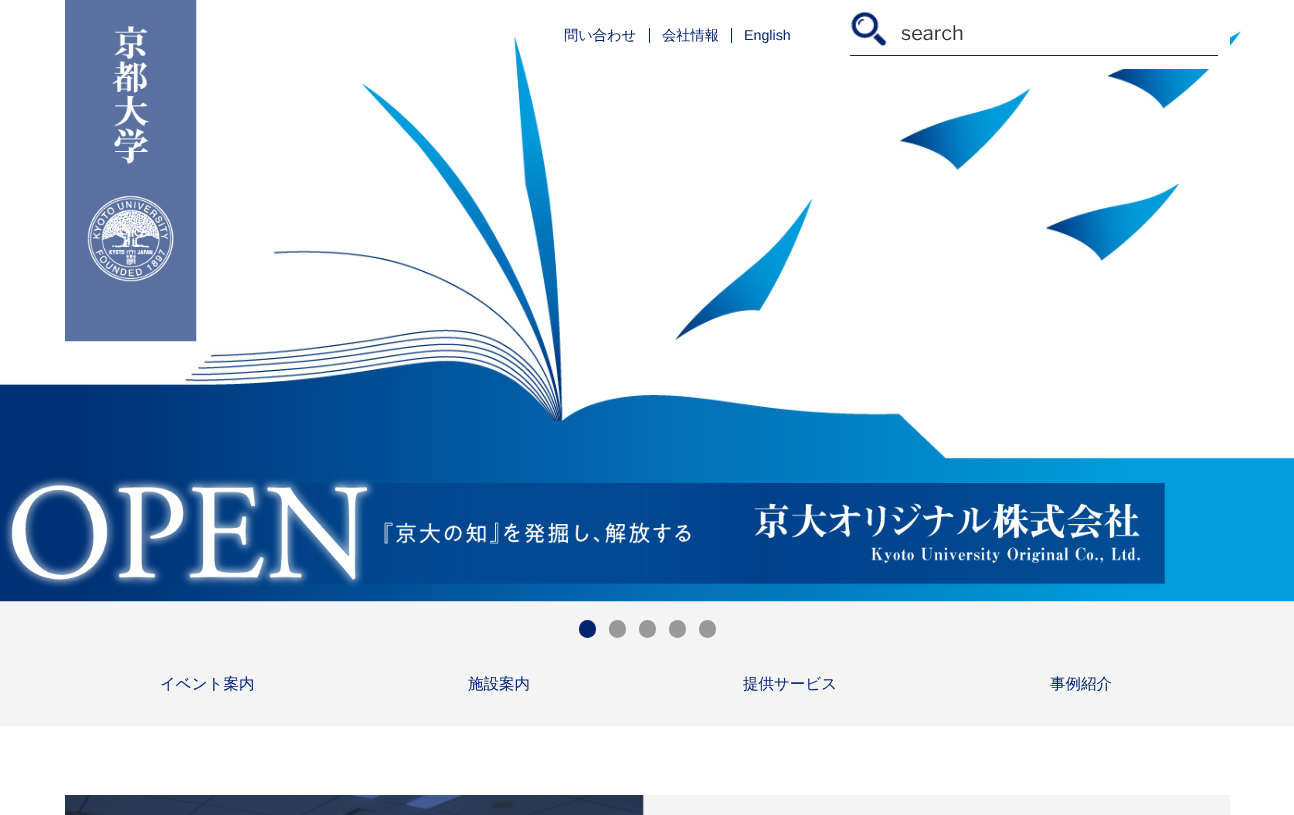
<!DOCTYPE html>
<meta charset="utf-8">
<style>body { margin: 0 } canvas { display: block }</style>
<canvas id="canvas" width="1294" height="815"></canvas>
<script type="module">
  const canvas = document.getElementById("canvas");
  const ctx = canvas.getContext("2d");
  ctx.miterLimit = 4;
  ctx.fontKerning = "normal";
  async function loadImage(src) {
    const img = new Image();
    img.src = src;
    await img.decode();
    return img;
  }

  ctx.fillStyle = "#ffffff";
  ctx.fillRect(0, 0, 1294, 815);
  ctx.fillStyle = "#f4f4f4";
  ctx.fillRect(0, 601, 1294, 125);
  ctx.drawImage(await loadImage("img1.png"), 0, 0, 1294, 602);
  ctx.fillStyle = "#00236f";
  ctx.beginPath();
  ctx.roundRect(579, 620, 17, 18, 8.5);
  ctx.fill();
  ctx.fillStyle = "#999999";
  ctx.beginPath();
  ctx.roundRect(609, 620, 17, 18, 8.5);
  ctx.fill();
  ctx.beginPath();
  ctx.roundRect(639, 620, 17, 18, 8.5);
  ctx.fill();
  ctx.beginPath();
  ctx.roundRect(669, 620, 17, 18, 8.5);
  ctx.fill();
  ctx.beginPath();
  ctx.roundRect(699, 620, 17, 18, 8.5);
  ctx.fill();
  ctx.drawImage(await loadImage("img2.png"), 65, 0, 132, 342);
  ctx.fillStyle = "#ffffff";
  ctx.fillRect(1122, 37, 108, 32);
  ctx.font = "500 14.25px WenQuanYi Zen Hei";
  ctx.fillStyle = "#00236f";
  ctx.fillText("問い合わせ", 564, 40);
  ctx.fillRect(649, 28, 1, 15);
  ctx.fillText("会社情報", 662, 40);
  ctx.fillRect(731, 28, 1, 15);
  ctx.font = "14.25px Liberation Sans";
  ctx.fillText("English", 744, 40);
  ctx.drawImage(await loadImage("img3.png"), 851, 12, 36, 35);
  ctx.fillRect(850, 55, 368, 1);
  ctx.font = "20px Libre Franklin";
  ctx.fillStyle = "#333333";
  ctx.fillText("search", 901, 40);
  ctx.drawImage(await loadImage("img4.png"), 3, 477, 1162, 111);
  ctx.font = "500 15.5px WenQuanYi Zen Hei";
  ctx.fillStyle = "#00236f";
  ctx.fillText("イベント案内", 160, 689);
  ctx.fillText("施設案内", 468, 689);
  ctx.fillText("提供サービス", 743, 689);
  ctx.fillText("事例紹介", 1050, 689);
  ctx.drawImage(await loadImage("img5.png"), 65, 795, 1165, 20);
</script>
